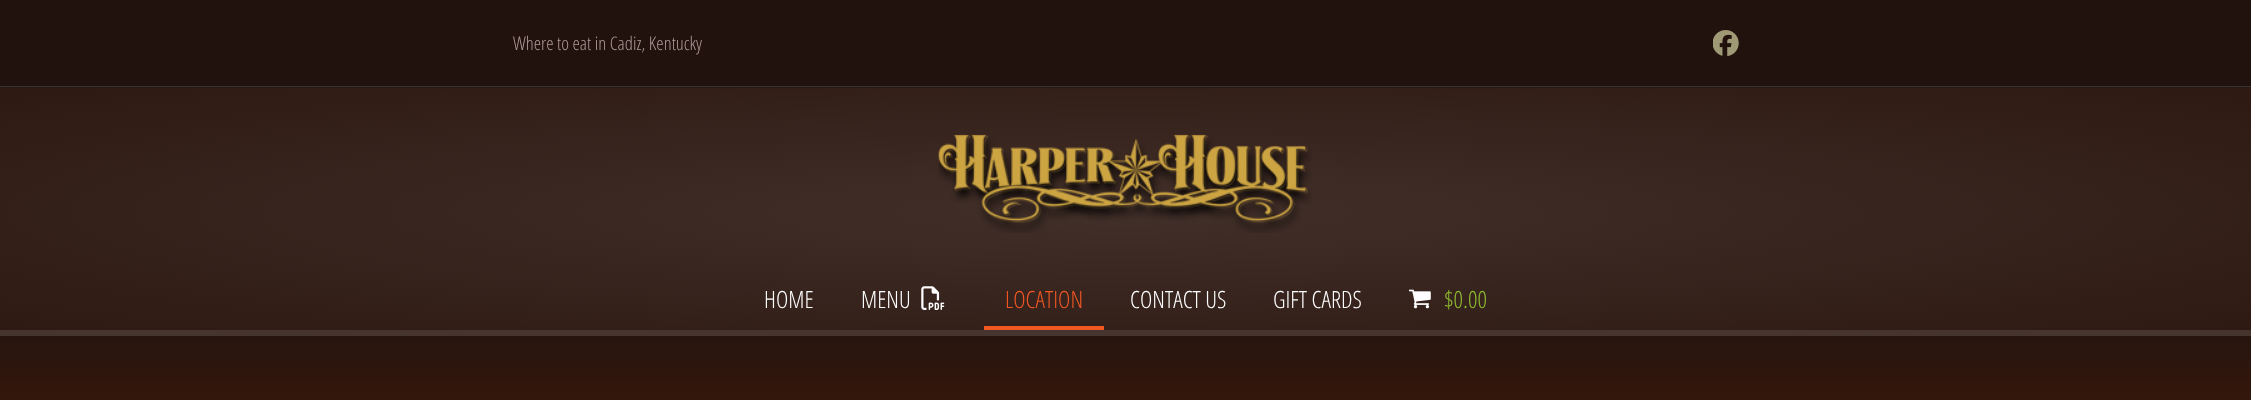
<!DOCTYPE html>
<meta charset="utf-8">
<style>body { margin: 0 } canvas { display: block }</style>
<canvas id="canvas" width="2251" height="400"></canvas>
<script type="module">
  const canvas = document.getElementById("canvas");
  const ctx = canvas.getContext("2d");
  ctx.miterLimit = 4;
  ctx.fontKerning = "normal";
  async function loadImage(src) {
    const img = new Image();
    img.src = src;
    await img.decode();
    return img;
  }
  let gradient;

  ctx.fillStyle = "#2d1912";
  ctx.fillRect(0, 0, 2251, 400);
  ctx.fillStyle = "#21120d";
  ctx.fillRect(0, 0, 2251, 86);
  ctx.fillStyle = "#333331";
  ctx.fillRect(0, 86, 2251, 1);
  ctx.font = "300 18.75px Open Sans Condensed";
  ctx.fillStyle = "#af9a99";
  ctx.fillText("Where to eat in Cadiz, Kentucky", 513, 50);
  ctx.drawImage(await loadImage("img1.png"), 1713, 30, 26, 26);
  gradient = ctx.createRadialGradient(1126, 1917.64, 0, 1126, 1917.64, 1592);
  gradient.addColorStop(0, "#412f29");
  gradient.addColorStop(1, "#2d1912");
  ctx.fillStyle = gradient;
  ctx.beginPath();
  ctx.rect(0, 88, 2251, 242);
  ctx.save();
  ctx.clip();
  ctx.scale(1, 176 / 1592);
  ctx.fillRect(0, 0, 2251, 3619);
  ctx.restore();
  ctx.drawImage(await loadImage("img2.png"), 938, 134, 374, 99);
  ctx.fillStyle = "#46342e";
  ctx.fillRect(0, 330, 2251, 6);
  ctx.font = "300 23.75px Open Sans Condensed";
  ctx.fillStyle = "#ffffff";
  ctx.fillText("HOME", 764, 308);
  ctx.fillText("MENU", 861, 308);
  ctx.drawImage(await loadImage("img3.png"), 921, 286, 24, 24);
  ctx.fillStyle = "#f15623";
  ctx.fillRect(984, 326, 120, 4);
  ctx.fillText("LOCATION", 1005, 308);
  ctx.fillStyle = "#ffffff";
  ctx.fillText("CONTACT US", 1130, 308);
  ctx.fillText("GIFT CARDS", 1273, 308);
  ctx.drawImage(await loadImage("img4.png"), 1409, 289, 22, 20);
  ctx.fillStyle = "#8db830";
  ctx.fillText("$0.00", 1444, 308);
  gradient = ctx.createLinearGradient(1126, 336, 1126, 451);
  gradient.addColorStop(0, "#26150f");
  gradient.addColorStop(0.52, "#33160c");
  gradient.addColorStop(1, "#26150f");
  ctx.fillStyle = gradient;
  ctx.fillRect(0, 336, 2251, 64);
</script>
